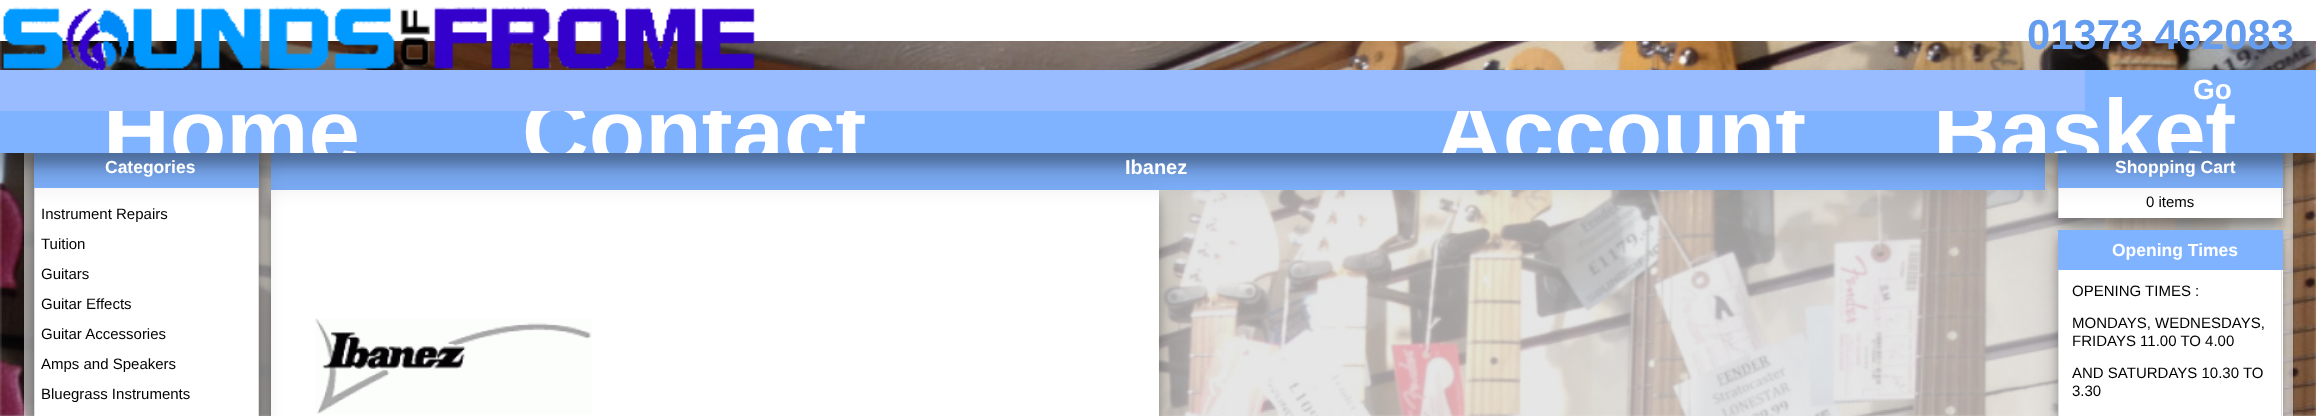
<!DOCTYPE html>
<meta charset="utf-8">
<style>body { margin: 0 } canvas { display: block }</style>
<canvas id="canvas" width="2316" height="416"></canvas>
<script type="module">
  const canvas = document.getElementById("canvas");
  const ctx = canvas.getContext("2d");
  ctx.miterLimit = 4;
  ctx.fontKerning = "normal";
  async function loadImage(src) {
    const img = new Image();
    img.src = src;
    await img.decode();
    return img;
  }

  ctx.fillStyle = "#ffffff";
  ctx.fillRect(0, 0, 2316, 416);
  ctx.drawImage(await loadImage("img1.png"), 0, 41, 2316, 375);
  ctx.save();
  ctx.beginPath();
  ctx.moveTo(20, 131);
  ctx.lineTo(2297, 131);
  ctx.lineTo(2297, 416);
  ctx.lineTo(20, 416);
  ctx.closePath();
  ctx.moveTo(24, 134);
  ctx.lineTo(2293, 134);
  ctx.lineTo(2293, 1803);
  ctx.lineTo(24, 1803);
  ctx.closePath();
  ctx.clip("evenodd");
  ctx.fillStyle = "rgba(0, 0, 0, 0.24)";
  ctx.filter = "blur(1px)";
  ctx.beginPath();
  ctx.rect(24, 135, 2269, 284);
  ctx.fill();
  ctx.filter = "none";
  ctx.restore();
  ctx.fillStyle = "rgba(220, 220, 220, 0.7)";
  ctx.fillRect(24, 153, 2269, 263);
  ctx.drawImage(await loadImage("img2.png"), 3, 6, 752, 64);
  ctx.font = "bold 41.75px Liberation Sans";
  ctx.fillStyle = "#649cef";
  ctx.fillText("01373 462083", 2027, 49);
  ctx.fillStyle = "#80b3ff";
  ctx.fillRect(271, 153, 1774, 37);
  ctx.fillStyle = "rgba(0, 0, 0, 0.23)";
  ctx.filter = "blur(4px)";
  ctx.beginPath();
  ctx.rect(271, 198, 888, 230);
  ctx.fill();
  ctx.filter = "none";
  ctx.fillStyle = "rgba(0, 0, 0, 0.19)";
  ctx.filter = "blur(12.5px)";
  ctx.beginPath();
  ctx.rect(271, 203, 888, 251);
  ctx.fill();
  ctx.filter = "none";
  ctx.fillStyle = "#ffffff";
  ctx.fillRect(271, 190, 888, 226);
  ctx.fillStyle = "rgba(0, 0, 0, 0.23)";
  ctx.filter = "blur(4px)";
  ctx.beginPath();
  ctx.rect(34, 155, 225, 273);
  ctx.fill();
  ctx.filter = "none";
  ctx.fillStyle = "rgba(0, 0, 0, 0.19)";
  ctx.filter = "blur(12.5px)";
  ctx.beginPath();
  ctx.rect(34, 160, 225, 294);
  ctx.fill();
  ctx.filter = "none";
  ctx.fillStyle = "#80b3ff";
  ctx.fillRect(34, 153, 225, 35);
  ctx.fillStyle = "rgba(0, 0, 0, 0.23)";
  ctx.filter = "blur(4px)";
  ctx.beginPath();
  ctx.rect(2058, 155, 225, 70);
  ctx.fill();
  ctx.filter = "none";
  ctx.fillStyle = "rgba(0, 0, 0, 0.19)";
  ctx.filter = "blur(12.5px)";
  ctx.beginPath();
  ctx.rect(2058, 160, 225, 70);
  ctx.fill();
  ctx.filter = "none";
  ctx.fillStyle = "#80b3ff";
  ctx.fillRect(2058, 153, 225, 35);
  ctx.fillStyle = "rgba(0, 0, 0, 0.22)";
  ctx.filter = "blur(6px)";
  ctx.beginPath();
  ctx.rect(0, 83, 2316, 82);
  ctx.fill();
  ctx.filter = "none";
  ctx.fillStyle = "#ffffff";
  ctx.fillRect(35, 188, 223, 228);
  ctx.fillStyle = "#dddddd";
  ctx.fillRect(258, 188, 1, 228);
  ctx.fillRect(34, 188, 1, 228);
  ctx.fillStyle = "#ffffff";
  ctx.fillRect(2059, 188, 224, 30);
  ctx.fillStyle = "#dddddd";
  ctx.fillRect(2281, 188, 1, 30);
  ctx.fillRect(2058, 188, 1, 30);
  ctx.fillStyle = "rgba(0, 0, 0, 0.25)";
  ctx.filter = "blur(17.5px)";
  ctx.beginPath();
  ctx.rect(0, 88, 2316, 82);
  ctx.fill();
  ctx.filter = "none";
  ctx.fillStyle = "#80b3ff";
  ctx.fillRect(0, 70, 2316, 83);
  ctx.save();
  ctx.beginPath();
  ctx.rect(0, 70, 2316, 83);
  ctx.clip();
  ctx.font = "bold 92.5px Liberation Sans";
  ctx.fillStyle = "#ffffff";
  ctx.fillText("Home", 103, 164);
  ctx.fillText("Contact", 522, 164);
  ctx.fillText("Account", 1436, 164);
  ctx.fillText("Basket", 1933, 164);
  ctx.restore();
  ctx.fillStyle = "#99bbff";
  ctx.fillRect(0, 70, 2085, 41);
  ctx.font = "bold 28px Liberation Sans";
  ctx.fillStyle = "#ffffff";
  ctx.fillText("Go", 2193, 99);
  ctx.font = "bold 17.5px Liberation Sans";
  ctx.fillText("Categories", 105, 173);
  ctx.font = "15px Liberation Sans";
  ctx.fillStyle = "#000000";
  ctx.fillText("Instrument Repairs", 41, 219);
  ctx.fillText("Tuition", 41, 249);
  ctx.fillText("Guitars", 41, 279);
  ctx.fillText("Guitar Effects", 41, 309);
  ctx.fillText("Guitar Accessories", 41, 339);
  ctx.fillText("Amps and Speakers", 41, 369);
  ctx.fillText("Bluegrass Instruments", 41, 399);
  ctx.font = "bold 20px Liberation Sans";
  ctx.fillStyle = "#ffffff";
  ctx.fillText("Ibanez", 1125, 174);
  ctx.drawImage(await loadImage("img3.png"), 315, 318, 277, 96);
  ctx.font = "bold 17.5px Liberation Sans";
  ctx.fillText("Shopping Cart", 2115, 173);
  ctx.fillStyle = "rgba(0, 0, 0, 0.19)";
  ctx.filter = "blur(12.5px)";
  ctx.beginPath();
  ctx.rect(2058, 243, 225, 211);
  ctx.fill();
  ctx.filter = "none";
  ctx.font = "15px Liberation Sans";
  ctx.fillStyle = "#000000";
  ctx.fillText("0 items", 2146, 207);
  ctx.fillStyle = "rgba(0, 0, 0, 0.23)";
  ctx.filter = "blur(4px)";
  ctx.beginPath();
  ctx.rect(2058, 238, 225, 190);
  ctx.fill();
  ctx.filter = "none";
  ctx.fillStyle = "#80b3ff";
  ctx.fillRect(2058, 230, 225, 40);
  ctx.font = "bold 17.5px Liberation Sans";
  ctx.fillStyle = "#ffffff";
  ctx.fillText("Opening Times", 2112, 256);
  ctx.fillRect(2059, 270, 224, 146);
  ctx.fillStyle = "#dddddd";
  ctx.fillRect(2281, 270, 1, 146);
  ctx.fillRect(2058, 270, 1, 146);
  ctx.font = "15px Liberation Sans";
  ctx.fillStyle = "#000000";
  ctx.fillText("OPENING TIMES :", 2072, 296);
  ctx.fillText("MONDAYS, WEDNESDAYS,", 2072, 328);
  ctx.fillText("FRIDAYS 11.00 TO 4.00", 2072, 346);
  ctx.fillText("AND SATURDAYS 10.30 TO", 2072, 378);
  ctx.fillText("3.30", 2072, 396);
</script>
